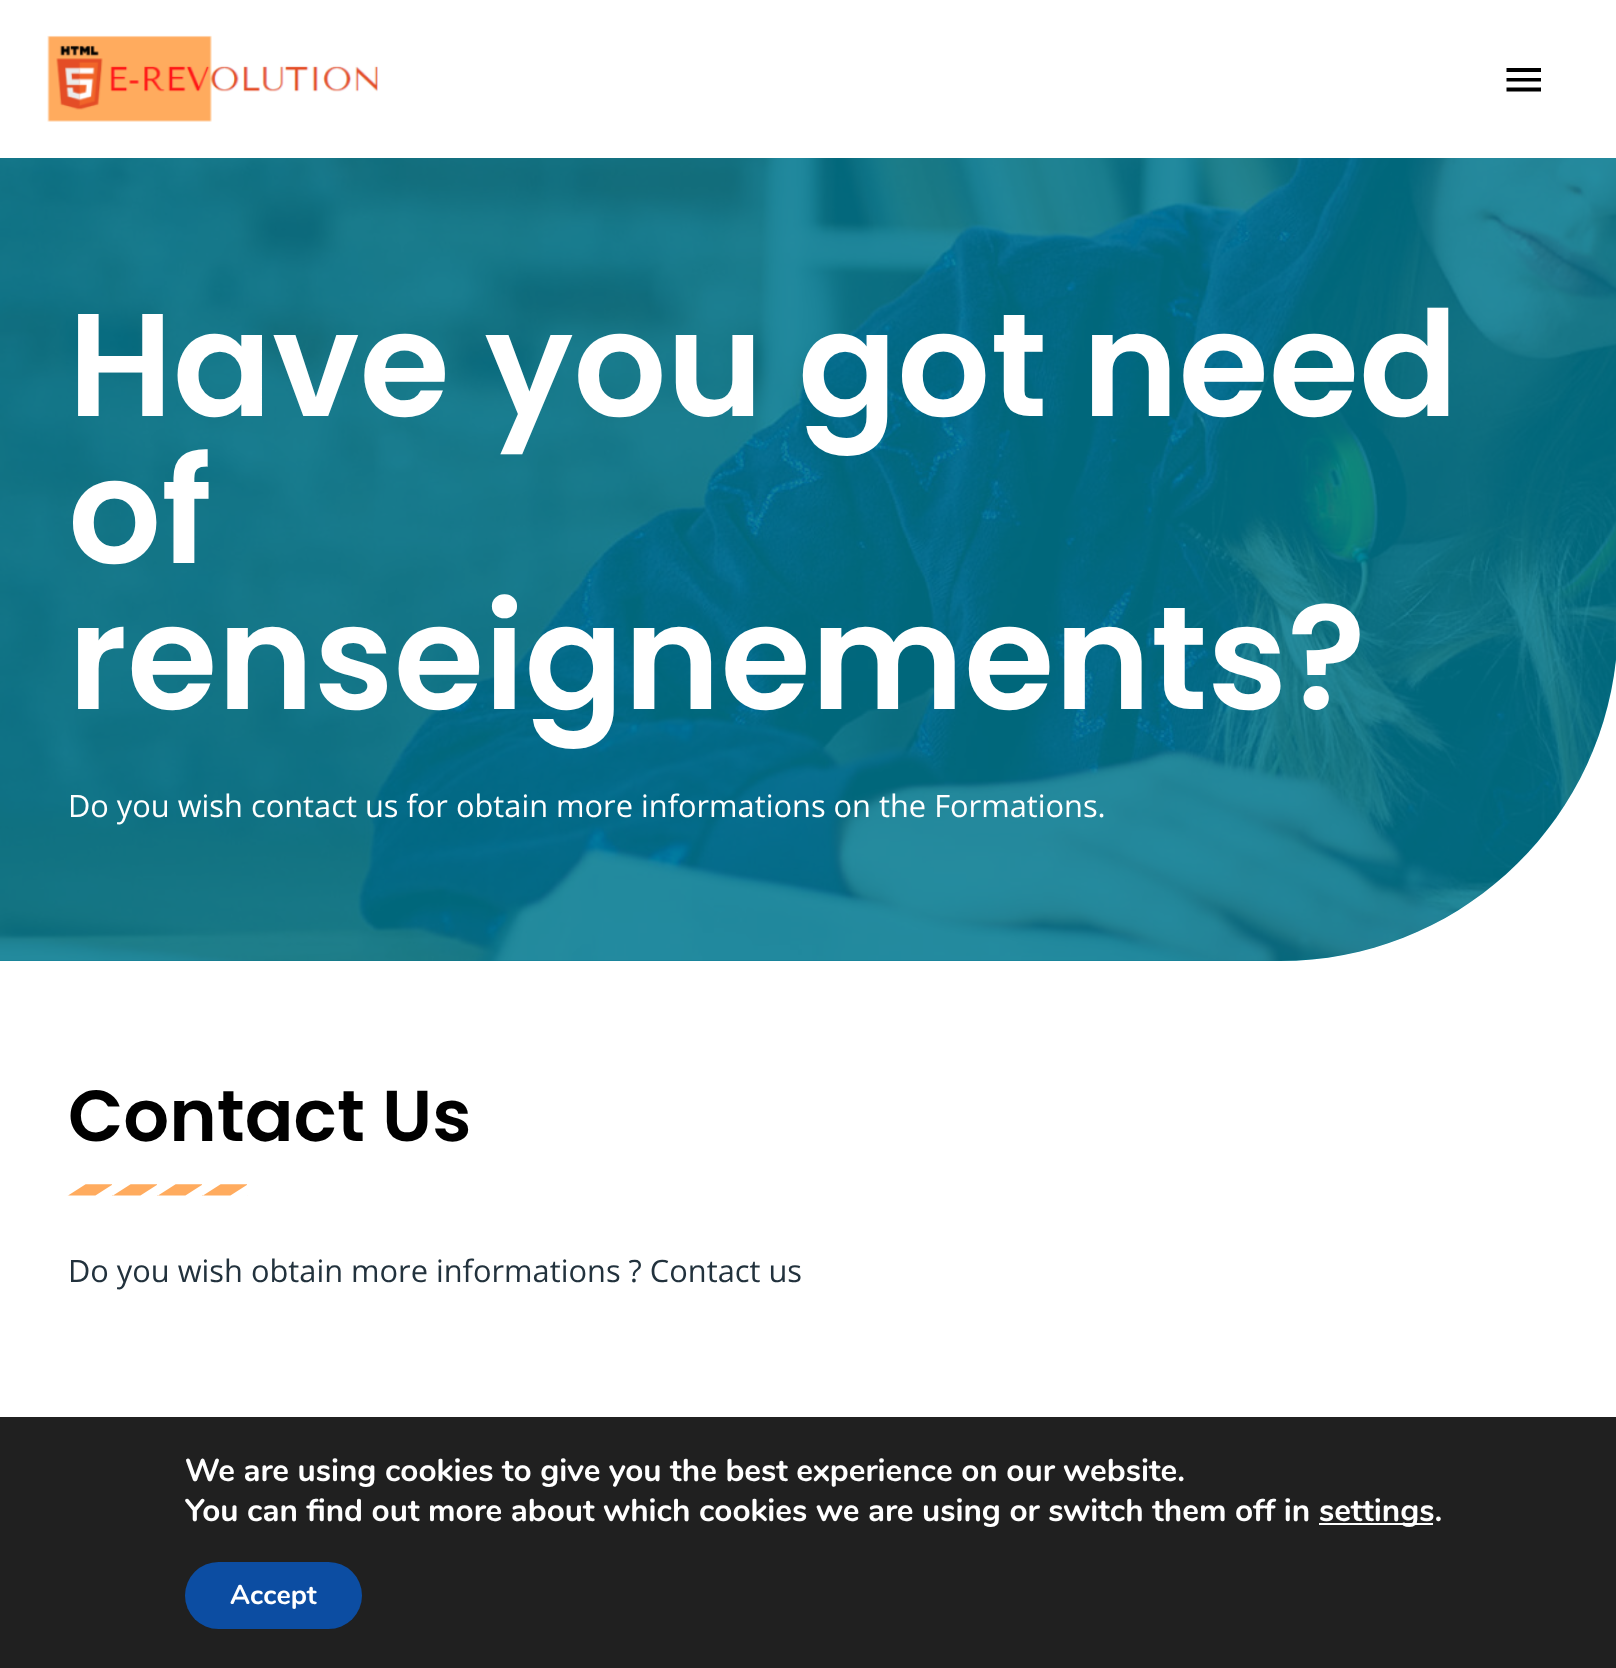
<!DOCTYPE html>
<meta charset="utf-8">
<style>body { margin: 0 } canvas { display: block }</style>
<canvas id="canvas" width="1616" height="1668"></canvas>
<script type="module">
  const canvas = document.getElementById("canvas");
  const ctx = canvas.getContext("2d");
  ctx.miterLimit = 4;
  ctx.fontKerning = "normal";
  async function loadImage(src) {
    const img = new Image();
    img.src = src;
    await img.decode();
    return img;
  }

  ctx.fillStyle = "#ffffff";
  ctx.fillRect(0, 0, 1616, 1668);
  ctx.fillStyle = "#007991";
  ctx.beginPath();
  ctx.moveTo(0, 0);
  ctx.lineTo(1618, 0);
  ctx.lineTo(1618, 623);
  ctx.bezierCurveTo(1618, 809.5, 1466.5, 961, 1280, 961);
  ctx.lineTo(0, 961);
  ctx.closePath();
  ctx.fill();
  ctx.fillStyle = "#ffffff";
  ctx.fillRect(0, 0, 1616, 158);
  ctx.drawImage(await loadImage("img1.png"), 47, 35, 331, 87);
  ctx.fillStyle = "#000000";
  ctx.beginPath();
  ctx.moveTo(1506.5, 68);
  ctx.lineTo(1541, 68);
  ctx.lineTo(1541, 72);
  ctx.lineTo(1506.5, 72);
  ctx.closePath();
  ctx.moveTo(1506.5, 81.5);
  ctx.lineTo(1506.5, 78);
  ctx.lineTo(1541, 78);
  ctx.lineTo(1541, 81.5);
  ctx.closePath();
  ctx.moveTo(1506.5, 91.5);
  ctx.lineTo(1506.5, 87.5);
  ctx.lineTo(1541, 87.5);
  ctx.lineTo(1541, 91.5);
  ctx.closePath();
  ctx.fill();
  ctx.drawImage(await loadImage("img2.png"), 0, 158, 1616, 803);
  ctx.font = "600 146.25px Poppins";
  ctx.fillStyle = "#ffffff";
  ctx.fillText("Have you got need", 68, 416);
  ctx.fillText("of", 68, 563);
  ctx.fillText("renseignements?", 68, 709);
  ctx.font = "30.8px Open Sans";
  ctx.fillText("Do you wish contact us for obtain more informations on the Formations.", 68, 817);
  ctx.font = "600 72px Poppins";
  ctx.fillStyle = "#000000";
  ctx.fillText("Contact Us", 68, 1141);
  ctx.drawImage(await loadImage("img3.png"), 67, 1184, 181, 12);
  ctx.font = "30.8px Open Sans";
  ctx.fillStyle = "#22323d";
  ctx.fillText("Do you wish obtain more informations ? Contact us", 68, 1282);
  ctx.fillStyle = "#202020";
  ctx.fillRect(0, 1417, 1616, 251);
  ctx.font = "bold 31.5px Nunito";
  ctx.fillStyle = "#ffffff";
  ctx.fillText("We are using cookies to give you the best experience on our website.", 185, 1481);
  ctx.fillText("You can find out more about which cookies we are using or switch them off in", 185, 1521);
  ctx.fillRect(1319, 1523, 114, 2);
  ctx.fillText("settings.", 1319, 1521);
  ctx.fillStyle = "#0c4da2";
  ctx.beginPath();
  ctx.roundRect(185, 1562, 177, 67, 33.5);
  ctx.fill();
  ctx.font = "bold 27px Nunito";
  ctx.fillStyle = "#ffffff";
  ctx.fillText("Accept", 230, 1604);
</script>
